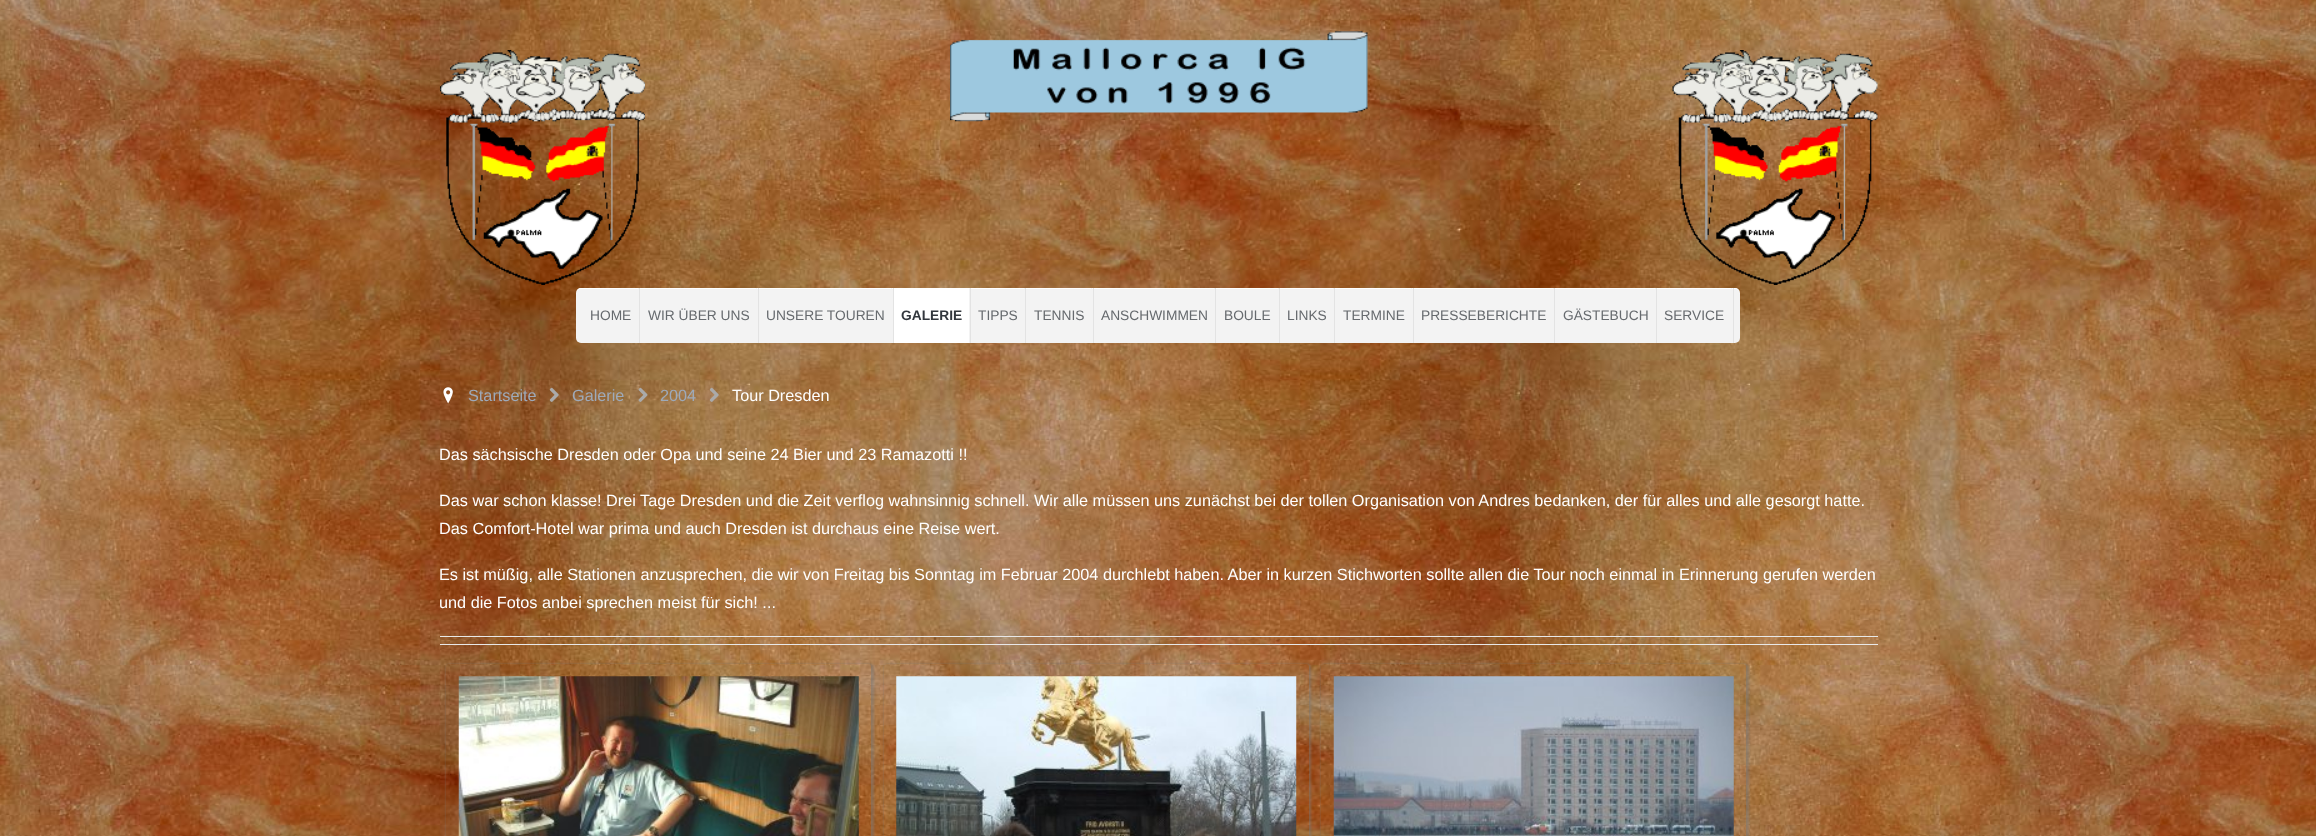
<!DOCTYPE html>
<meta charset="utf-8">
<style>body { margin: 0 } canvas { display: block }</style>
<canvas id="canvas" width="2316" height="836"></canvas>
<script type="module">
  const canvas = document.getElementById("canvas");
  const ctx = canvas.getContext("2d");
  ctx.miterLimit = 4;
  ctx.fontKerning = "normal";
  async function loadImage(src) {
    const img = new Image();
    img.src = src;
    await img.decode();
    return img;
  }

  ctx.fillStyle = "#ffffff";
  ctx.fillRect(0, 0, 2316, 836);
  ctx.drawImage(await loadImage("img1.png"), 0, 0, 2316, 836);
  ctx.drawImage(await loadImage("img2.png"), 440, 50, 205, 235);
  ctx.drawImage(await loadImage("img3.png"), 950, 31, 418, 91);
  ctx.drawImage(await loadImage("img4.png"), 1672, 50, 206, 235);
  ctx.fillStyle = "#f3f3f3";
  ctx.beginPath();
  ctx.roundRect(576, 288, 1164, 55, 5);
  ctx.fill();
  ctx.fillStyle = "#ffffff";
  ctx.beginPath();
  ctx.moveTo(581, 289);
  ctx.lineTo(1735, 289);
  ctx.bezierCurveTo(1738, 289, 1740, 291, 1740, 294);
  ctx.bezierCurveTo(1740, 291, 1738, 288, 1735, 288);
  ctx.lineTo(581, 288);
  ctx.bezierCurveTo(578, 288, 576, 291, 576, 294);
  ctx.bezierCurveTo(576, 291, 578, 289, 581, 289);
  ctx.closePath();
  ctx.fill();
  ctx.fillStyle = "#e3e3e3";
  ctx.fillRect(639, 288, 1, 55);
  ctx.fillStyle = "#f5f5f5";
  ctx.fillRect(638, 288, 1, 1);
  ctx.font = "13.75px Liberation Sans";
  ctx.fillStyle = "#666a6e";
  ctx.fillText("HOME", 590, 320);
  ctx.fillStyle = "#e3e3e3";
  ctx.fillRect(758, 288, 1, 55);
  ctx.fillStyle = "#f5f5f5";
  ctx.fillRect(756, 288, 1, 1);
  ctx.fillStyle = "#666a6e";
  ctx.fillText("WIR ÜBER UNS", 648, 320);
  ctx.fillStyle = "#e3e3e3";
  ctx.fillRect(893, 288, 1, 55);
  ctx.fillStyle = "#f5f5f5";
  ctx.fillRect(891, 288, 1, 1);
  ctx.fillStyle = "#666a6e";
  ctx.fillText("UNSERE TOUREN", 766, 320);
  ctx.fillStyle = "#ffffff";
  ctx.fillRect(894, 289, 75, 54);
  ctx.fillStyle = "#e3e3e3";
  ctx.fillRect(970, 288, 1, 55);
  ctx.fillStyle = "#f5f5f5";
  ctx.fillRect(969, 288, 1, 1);
  ctx.font = "bold 13.75px Liberation Sans";
  ctx.fillStyle = "#32373d";
  ctx.fillText("GALERIE", 901, 320);
  ctx.fillStyle = "#e3e3e3";
  ctx.fillRect(1025, 288, 1, 55);
  ctx.fillStyle = "#f5f5f5";
  ctx.fillRect(1024, 288, 1, 1);
  ctx.font = "13.75px Liberation Sans";
  ctx.fillStyle = "#666a6e";
  ctx.fillText("TIPPS", 978, 320);
  ctx.fillStyle = "#e3e3e3";
  ctx.fillRect(1093, 288, 1, 55);
  ctx.fillStyle = "#f5f5f5";
  ctx.fillRect(1091, 288, 1, 1);
  ctx.fillStyle = "#666a6e";
  ctx.fillText("TENNIS", 1034, 320);
  ctx.fillStyle = "#e3e3e3";
  ctx.fillRect(1215, 288, 1, 55);
  ctx.fillStyle = "#f5f5f5";
  ctx.fillRect(1214, 288, 1, 1);
  ctx.fillStyle = "#666a6e";
  ctx.fillText("ANSCHWIMMEN", 1101, 320);
  ctx.fillStyle = "#e3e3e3";
  ctx.fillRect(1279, 288, 1, 55);
  ctx.fillStyle = "#f5f5f5";
  ctx.fillRect(1278, 288, 1, 1);
  ctx.fillStyle = "#666a6e";
  ctx.fillText("BOULE", 1224, 320);
  ctx.fillStyle = "#e3e3e3";
  ctx.fillRect(1334, 288, 1, 55);
  ctx.fillStyle = "#f5f5f5";
  ctx.fillRect(1333, 288, 1, 1);
  ctx.fillStyle = "#666a6e";
  ctx.fillText("LINKS", 1287, 320);
  ctx.fillStyle = "#e3e3e3";
  ctx.fillRect(1413, 288, 1, 55);
  ctx.fillStyle = "#f5f5f5";
  ctx.fillRect(1411, 288, 1, 1);
  ctx.fillStyle = "#666a6e";
  ctx.fillText("TERMINE", 1343, 320);
  ctx.fillStyle = "#e3e3e3";
  ctx.fillRect(1554, 288, 1, 55);
  ctx.fillStyle = "#f5f5f5";
  ctx.fillRect(1553, 288, 1, 1);
  ctx.fillStyle = "#666a6e";
  ctx.fillText("PRESSEBERICHTE", 1421, 320);
  ctx.fillStyle = "#e3e3e3";
  ctx.fillRect(1656, 288, 1, 55);
  ctx.fillStyle = "#f5f5f5";
  ctx.fillRect(1655, 288, 1, 1);
  ctx.fillStyle = "#666a6e";
  ctx.fillText("GÄSTEBUCH", 1563, 320);
  ctx.fillStyle = "#e3e3e3";
  ctx.fillRect(1733, 288, 1, 55);
  ctx.fillStyle = "#f5f5f5";
  ctx.fillRect(1731, 288, 1, 1);
  ctx.fillStyle = "#666a6e";
  ctx.fillText("SERVICE", 1664, 320);
  ctx.drawImage(await loadImage("img5.png"), 443, 387, 10, 17);
  ctx.font = "16.25px Liberation Sans";
  ctx.fillStyle = "#9eaaba";
  ctx.fillText("Startseite", 468, 401);
  ctx.drawImage(await loadImage("img6.png"), 549, 387, 10, 15);
  ctx.fillText("Galerie", 572, 401);
  ctx.drawImage(await loadImage("img7.png"), 638, 387, 10, 15);
  ctx.fillText("2004", 660, 401);
  ctx.drawImage(await loadImage("img8.png"), 709, 387, 10, 15);
  ctx.fillStyle = "#ffffff";
  ctx.fillText("Tour Dresden", 732, 401);
  ctx.fillText("Das sächsische Dresden oder Opa und seine 24 Bier und 23 Ramazotti !!", 439, 460);
  ctx.fillText("Das war schon klasse! Drei Tage Dresden und die Zeit verflog wahnsinnig schnell. Wir alle müssen uns zunächst bei der tollen Organisation von Andres bedanken, der für alles und alle gesorgt hatte.", 439, 506);
  ctx.fillText("Das Comfort-Hotel war prima und auch Dresden ist durchaus eine Reise wert.", 439, 534);
  ctx.fillText("Es ist müßig, alle Stationen anzusprechen, die wir von Freitag bis Sonntag im Februar 2004 durchlebt haben. Aber in kurzen Stichworten sollte allen die Tour noch einmal in Erinnerung gerufen werden", 439, 580);
  ctx.fillText("und die Fotos anbei sprechen meist für sich! ...", 439, 608);
  ctx.fillStyle = "#e8e8e8";
  ctx.fillRect(440, 636, 1438, 1);
  ctx.fillRect(440, 644, 1438, 1);
  ctx.save();
  ctx.beginPath();
  ctx.moveTo(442, 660);
  ctx.lineTo(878, 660);
  ctx.lineTo(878, 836);
  ctx.lineTo(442, 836);
  ctx.closePath();
  ctx.moveTo(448.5, 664);
  ctx.lineTo(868.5, 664);
  ctx.bezierCurveTo(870, 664, 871, 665, 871, 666.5);
  ctx.lineTo(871, 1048.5);
  ctx.bezierCurveTo(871, 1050, 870, 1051, 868.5, 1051);
  ctx.lineTo(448.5, 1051);
  ctx.bezierCurveTo(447, 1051, 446, 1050, 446, 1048.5);
  ctx.lineTo(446, 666.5);
  ctx.bezierCurveTo(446, 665, 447, 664, 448.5, 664);
  ctx.closePath();
  ctx.clip("evenodd");
  ctx.fillStyle = "rgba(120, 120, 120, 0.5)";
  ctx.filter = "blur(1px)";
  ctx.beginPath();
  ctx.roundRect(446, 664, 428, 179, 4);
  ctx.fill();
  ctx.filter = "none";
  ctx.restore();
  ctx.drawImage(await loadImage("img9.png"), 458, 676, 401, 160);
  ctx.save();
  ctx.beginPath();
  ctx.moveTo(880, 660);
  ctx.lineTo(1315, 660);
  ctx.lineTo(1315, 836);
  ctx.lineTo(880, 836);
  ctx.closePath();
  ctx.moveTo(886.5, 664);
  ctx.lineTo(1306.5, 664);
  ctx.bezierCurveTo(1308, 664, 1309, 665, 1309, 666.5);
  ctx.lineTo(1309, 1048.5);
  ctx.bezierCurveTo(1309, 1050, 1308, 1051, 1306.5, 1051);
  ctx.lineTo(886.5, 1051);
  ctx.bezierCurveTo(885, 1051, 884, 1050, 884, 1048.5);
  ctx.lineTo(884, 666.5);
  ctx.bezierCurveTo(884, 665, 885, 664, 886.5, 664);
  ctx.closePath();
  ctx.clip("evenodd");
  ctx.fillStyle = "rgba(120, 120, 120, 0.5)";
  ctx.filter = "blur(1px)";
  ctx.beginPath();
  ctx.roundRect(884, 664, 427, 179, 4);
  ctx.fill();
  ctx.filter = "none";
  ctx.restore();
  ctx.drawImage(await loadImage("img10.png"), 896, 676, 401, 160);
  ctx.save();
  ctx.beginPath();
  ctx.moveTo(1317, 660);
  ctx.lineTo(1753, 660);
  ctx.lineTo(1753, 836);
  ctx.lineTo(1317, 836);
  ctx.closePath();
  ctx.moveTo(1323.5, 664);
  ctx.lineTo(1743.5, 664);
  ctx.bezierCurveTo(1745, 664, 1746, 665, 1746, 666.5);
  ctx.lineTo(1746, 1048.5);
  ctx.bezierCurveTo(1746, 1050, 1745, 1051, 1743.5, 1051);
  ctx.lineTo(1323.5, 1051);
  ctx.bezierCurveTo(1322, 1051, 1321, 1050, 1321, 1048.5);
  ctx.lineTo(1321, 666.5);
  ctx.bezierCurveTo(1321, 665, 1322, 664, 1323.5, 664);
  ctx.closePath();
  ctx.clip("evenodd");
  ctx.fillStyle = "rgba(120, 120, 120, 0.5)";
  ctx.filter = "blur(1px)";
  ctx.beginPath();
  ctx.roundRect(1321, 664, 428, 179, 4);
  ctx.fill();
  ctx.filter = "none";
  ctx.restore();
  ctx.drawImage(await loadImage("img11.png"), 1333, 676, 401, 160);
</script>
